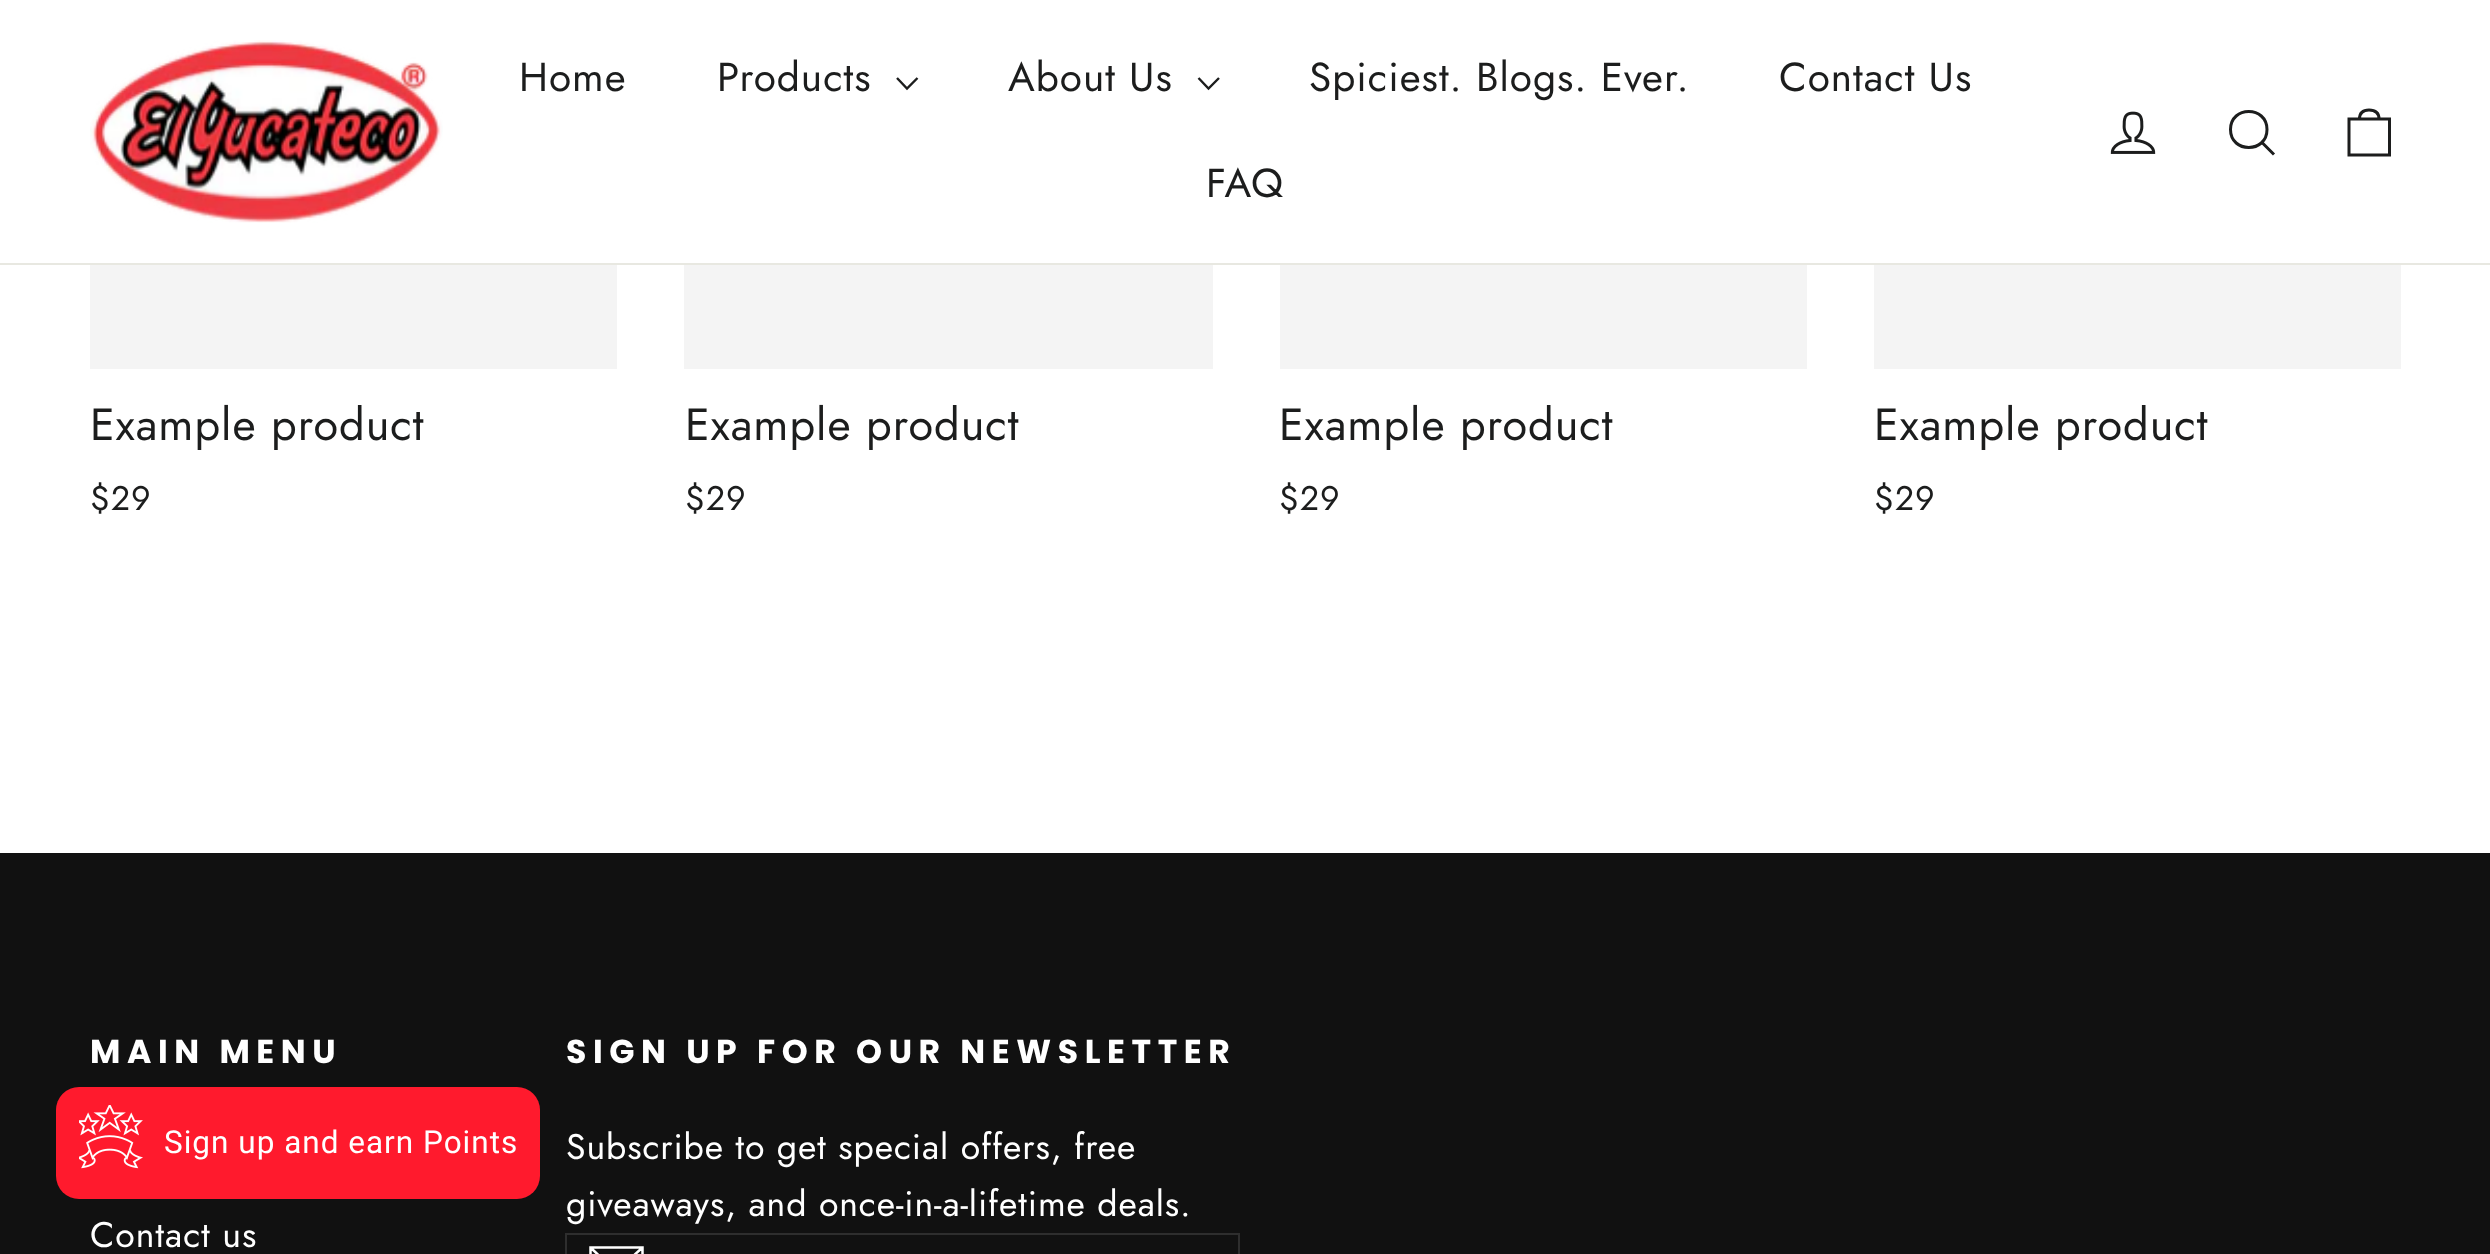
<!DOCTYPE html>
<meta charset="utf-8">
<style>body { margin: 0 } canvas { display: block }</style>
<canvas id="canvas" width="2490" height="1254"></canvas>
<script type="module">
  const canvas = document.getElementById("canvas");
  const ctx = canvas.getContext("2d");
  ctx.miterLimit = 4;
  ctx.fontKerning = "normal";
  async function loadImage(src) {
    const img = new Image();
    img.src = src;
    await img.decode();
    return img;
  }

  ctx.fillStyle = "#ffffff";
  ctx.fillRect(0, 0, 2490, 1254);
  ctx.fillStyle = "#e8e8e1";
  ctx.fillRect(0, 263, 2490, 2);
  ctx.drawImage(await loadImage("img1.png"), 90, 40, 353, 183);
  ctx.letterSpacing = "1px";
  ctx.font = "40.5px Jost";
  ctx.fillStyle = "#1c1d1d";
  ctx.fillText("Home", 519, 91);
  ctx.fillText("Products", 717, 91);
  ctx.beginPath();
  ctx.moveTo(897, 78);
  ctx.lineTo(907, 88.5);
  ctx.lineTo(917.5, 78);
  ctx.strokeStyle = "#1c1d1d";
  ctx.lineWidth = 2.4;
  ctx.stroke();
  ctx.fillText("About Us", 1008, 91);
  ctx.beginPath();
  ctx.moveTo(1198.5, 78);
  ctx.lineTo(1208.5, 88.5);
  ctx.lineTo(1219, 78);
  ctx.stroke();
  ctx.fillText("Spiciest. Blogs. Ever.", 1309, 91);
  ctx.fillText("Contact Us", 1779, 91);
  ctx.fillText("FAQ", 1206, 197);
  ctx.drawImage(await loadImage("img2.png"), 2110, 111, 46, 43);
  ctx.beginPath();
  ctx.moveTo(2267, 129.5);
  ctx.bezierCurveTo(2267, 153.5, 2230.5, 153.5, 2230.5, 129.5);
  ctx.bezierCurveTo(2230.5, 105.5, 2267, 105.5, 2267, 129.5);
  ctx.closePath();
  ctx.moveTo(2274, 154.5);
  ctx.lineTo(2262, 142.5);
  ctx.lineWidth = 3;
  ctx.stroke();
  ctx.beginPath();
  ctx.moveTo(2349, 119);
  ctx.lineTo(2389.5, 119);
  ctx.lineTo(2389.5, 155);
  ctx.lineTo(2349, 155);
  ctx.closePath();
  ctx.moveTo(2359.5, 119);
  ctx.bezierCurveTo(2359.5, 112, 2364, 110, 2369, 110);
  ctx.bezierCurveTo(2374.5, 110, 2379, 112, 2379, 119);
  ctx.stroke();
  ctx.fillStyle = "#f4f4f4";
  ctx.fillRect(90, 265, 527, 104);
  ctx.font = "45px Jost";
  ctx.fillStyle = "#1c1d1d";
  ctx.fillText("Example product", 90, 440);
  ctx.font = "34px Jost";
  ctx.fillText("$29", 90, 510);
  ctx.fillStyle = "#f4f4f4";
  ctx.fillRect(684, 265, 529, 104);
  ctx.font = "45px Jost";
  ctx.fillStyle = "#1c1d1d";
  ctx.fillText("Example product", 685, 440);
  ctx.font = "34px Jost";
  ctx.fillText("$29", 685, 510);
  ctx.fillStyle = "#f4f4f4";
  ctx.fillRect(1280, 265, 527, 104);
  ctx.font = "45px Jost";
  ctx.fillStyle = "#1c1d1d";
  ctx.fillText("Example product", 1279, 440);
  ctx.font = "34px Jost";
  ctx.fillText("$29", 1279, 510);
  ctx.fillStyle = "#f4f4f4";
  ctx.fillRect(1874, 265, 527, 104);
  ctx.font = "45px Jost";
  ctx.fillStyle = "#1c1d1d";
  ctx.fillText("Example product", 1874, 440);
  ctx.font = "34px Jost";
  ctx.fillText("$29", 1874, 510);
  ctx.fillStyle = "#111111";
  ctx.fillRect(0, 853, 2490, 401);
  ctx.letterSpacing = "6.6px";
  ctx.font = "bold 33.1px Poppins";
  ctx.fillStyle = "#ffffff";
  ctx.fillText("MAIN MENU", 90, 1063);
  ctx.letterSpacing = "1px";
  ctx.font = "35.6px Jost";
  ctx.fillText("Contact us", 90, 1247);
  ctx.letterSpacing = "6.6px";
  ctx.font = "bold 33.1px Poppins";
  ctx.fillText("SIGN UP FOR OUR NEWSLETTER", 566, 1063);
  ctx.letterSpacing = "0.9px";
  ctx.font = "35.6px Jost";
  ctx.fillText("Subscribe to get special offers, free", 566, 1159);
  ctx.fillText("giveaways, and once-in-a-lifetime deals.", 566, 1216);
  ctx.strokeStyle = "#2e2e2e";
  ctx.lineWidth = 2;
  ctx.strokeRect(566, 1234, 673, 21);
  ctx.beginPath();
  ctx.moveTo(642.5, 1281.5);
  ctx.lineTo(590.5, 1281.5);
  ctx.lineTo(590.5, 1247.5);
  ctx.lineTo(642.5, 1247.5);
  ctx.closePath();
  ctx.moveTo(590.5, 1247.5);
  ctx.lineTo(612, 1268);
  ctx.lineTo(620, 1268);
  ctx.lineTo(642.5, 1247.5);
  ctx.moveTo(608, 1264);
  ctx.lineTo(591, 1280.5);
  ctx.moveTo(642, 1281.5);
  ctx.lineTo(624.5, 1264);
  ctx.strokeStyle = "#ffffff";
  ctx.lineWidth = 2.5;
  ctx.stroke();
  ctx.fillStyle = "#ff1a2d";
  ctx.beginPath();
  ctx.roundRect(56, 1087, 484, 112, 23);
  ctx.fill();
  ctx.drawImage(await loadImage("img3.png"), 79, 1105, 64, 64);
  ctx.letterSpacing = "1px";
  ctx.font = "31.5px Roboto";
  ctx.fillStyle = "#ffffff";
  ctx.fillText("Sign up and earn Points", 164, 1153);
</script>
